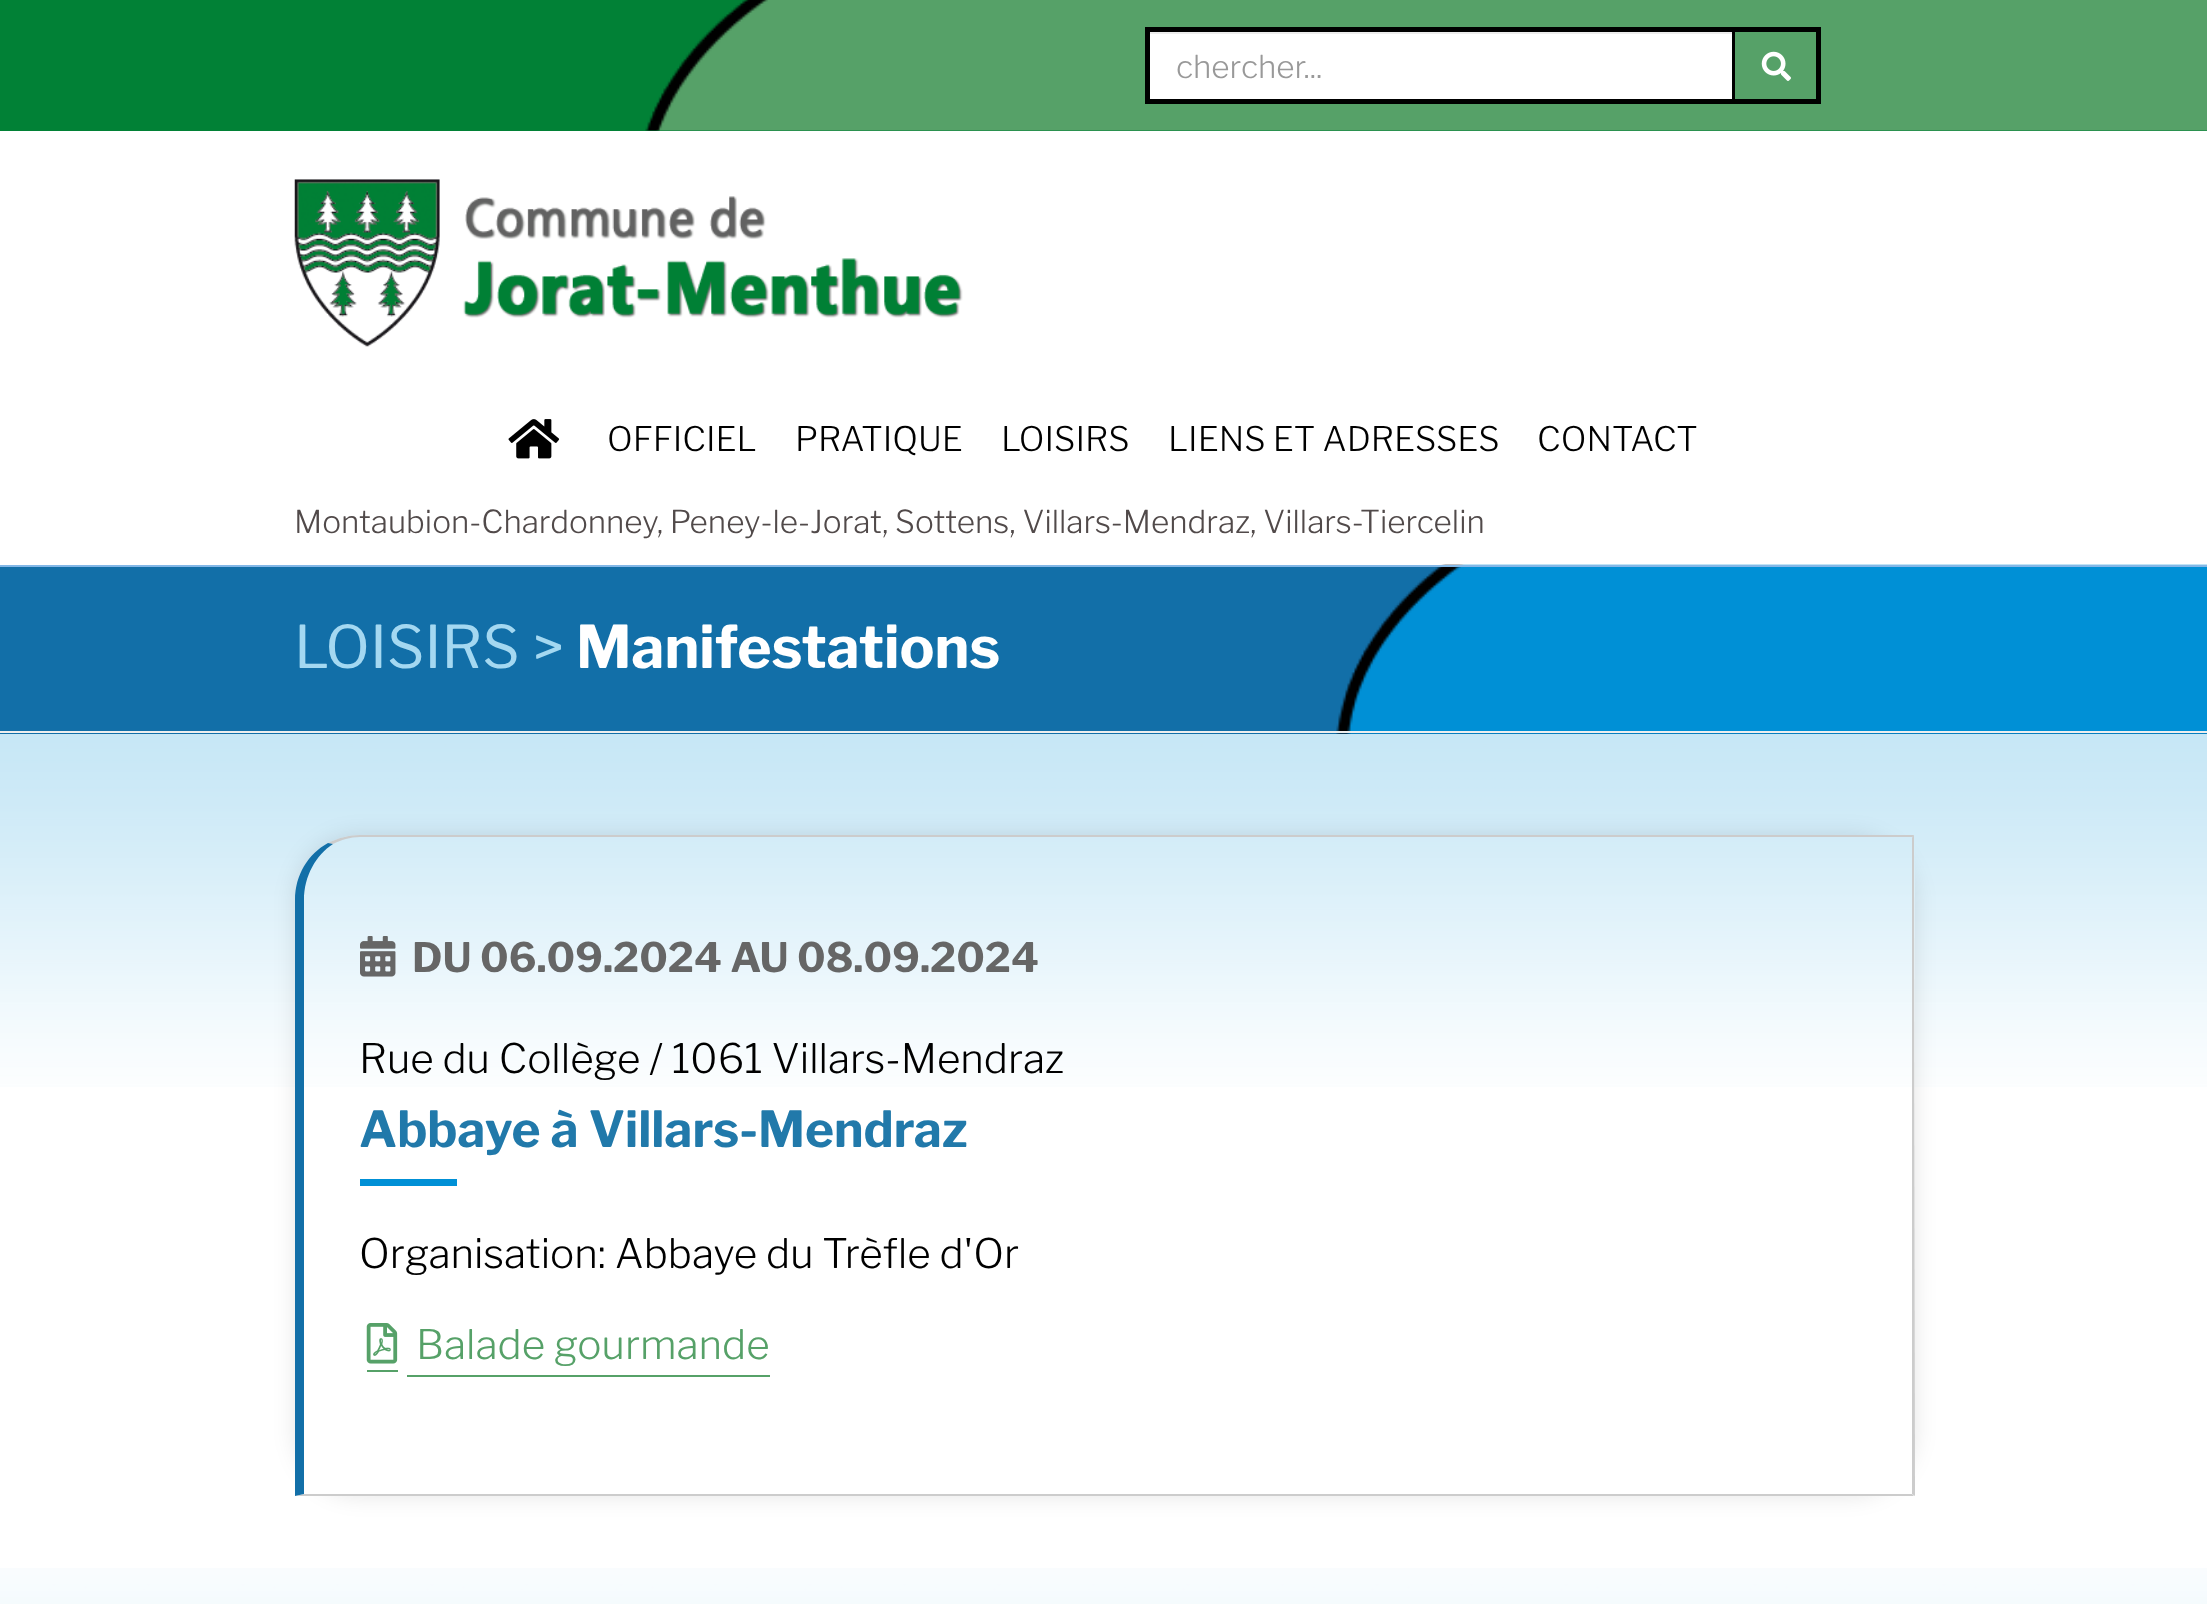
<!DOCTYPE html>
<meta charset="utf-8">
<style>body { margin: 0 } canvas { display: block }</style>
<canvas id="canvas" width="2207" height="1604"></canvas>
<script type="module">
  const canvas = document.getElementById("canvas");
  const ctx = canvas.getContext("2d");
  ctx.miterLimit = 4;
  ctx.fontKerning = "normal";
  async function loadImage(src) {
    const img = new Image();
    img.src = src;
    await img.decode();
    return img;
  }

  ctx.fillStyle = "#ffffff";
  ctx.fillRect(0, 0, 2207, 1604);
  ctx.fillStyle = "#018136";
  ctx.fillRect(0, 0, 2207, 131);
  ctx.drawImage(await loadImage("img1.png"), 645, 0, 1562, 131);
  ctx.fillStyle = "#ffffff";
  ctx.fillRect(1150, 34, 582, 65);
  ctx.fillStyle = "#ececec";
  ctx.fillRect(1150, 32, 583, 2);
  ctx.strokeStyle = "#000000";
  ctx.lineWidth = 5;
  ctx.strokeRect(1147.5, 29.5, 587, 72);
  ctx.font = "300 31.5px Libre Franklin";
  ctx.fillStyle = "#999999";
  ctx.fillText("chercher...", 1176, 78);
  ctx.fillStyle = "#56a168";
  ctx.fillRect(1735, 32, 2, 67);
  ctx.fillStyle = "#000000";
  ctx.fillRect(1735, 27, 85, 5);
  ctx.fillRect(1816, 27, 5, 77);
  ctx.fillRect(1735, 99, 85, 5);
  ctx.drawImage(await loadImage("img2.png"), 1761, 51, 30, 30);
  ctx.drawImage(await loadImage("img3.png"), 294, 179, 669, 168);
  ctx.drawImage(await loadImage("img4.png"), 508, 419, 52, 40);
  ctx.font = "300 33.75px Libre Franklin";
  ctx.fillText("OFFICIEL", 607, 451);
  ctx.fillText("PRATIQUE", 795, 451);
  ctx.fillText("LOISIRS", 1001, 451);
  ctx.fillText("LIENS ET ADRESSES", 1168, 451);
  ctx.fillText("CONTACT", 1537, 451);
  ctx.font = "300 31.5px Libre Franklin";
  ctx.fillStyle = "#514a4a";
  ctx.fillText("Montaubion-Chardonney, Peney-le-Jorat, Sottens, Villars-Mendraz, Villars-Tiercelin", 294, 533);
  ctx.drawImage(await loadImage("img5.png"), 0, 1568, 2207, 36);
  ctx.fillStyle = "#126fa8";
  ctx.fillRect(0, 567, 2207, 167);
  ctx.drawImage(await loadImage("img6.png"), 1336, 564, 871, 170);
  ctx.fillStyle = "#83b7e7";
  ctx.fillRect(0, 565, 2207, 2);
  ctx.fillStyle = "#eeeeee";
  ctx.fillRect(0, 731, 2207, 2);
  ctx.font = "58.5px Libre Franklin";
  ctx.fillStyle = "#a4d8f1";
  ctx.fillText("LOISIRS >", 294, 668);
  ctx.font = "bold 58.5px Libre Franklin";
  ctx.fillStyle = "#ffffff";
  ctx.fillText("Manifestations", 576, 668);
  ctx.drawImage(await loadImage("img7.png"), 0, 734, 2207, 353);
  ctx.save();
  ctx.beginPath();
  ctx.moveTo(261, 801);
  ctx.lineTo(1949, 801);
  ctx.lineTo(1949, 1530);
  ctx.lineTo(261, 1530);
  ctx.closePath();
  ctx.moveTo(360, 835);
  ctx.lineTo(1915, 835);
  ctx.lineTo(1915, 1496);
  ctx.lineTo(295, 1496);
  ctx.lineTo(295, 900);
  ctx.bezierCurveTo(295, 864, 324, 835, 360, 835);
  ctx.closePath();
  ctx.clip("evenodd");
  ctx.fillStyle = "rgba(0, 0, 0, 0.1)";
  ctx.filter = "blur(11px)";
  ctx.beginPath();
  ctx.roundRect(295, 835, 1620, 661, 65);
  ctx.fill();
  ctx.filter = "none";
  ctx.restore();
  ctx.fillStyle = "#cccccc";
  ctx.beginPath();
  ctx.moveTo(360, 835);
  ctx.bezierCurveTo(349, 835, 338, 838, 328, 843);
  ctx.lineTo(333, 844);
  ctx.bezierCurveTo(341, 840, 350, 837, 360, 837);
  ctx.lineTo(1912, 837);
  ctx.lineTo(1912, 838);
  ctx.lineTo(1914, 835);
  ctx.closePath();
  ctx.fill();
  ctx.beginPath();
  ctx.moveTo(1915, 1496);
  ctx.lineTo(1912, 1494);
  ctx.lineTo(1912, 838);
  ctx.lineTo(1914, 835);
  ctx.closePath();
  ctx.fill();
  ctx.beginPath();
  ctx.moveTo(1914, 1496);
  ctx.lineTo(296, 1496);
  ctx.lineTo(304, 1494);
  ctx.lineTo(1912, 1494);
  ctx.closePath();
  ctx.fill();
  ctx.fillStyle = "#126fa8";
  ctx.beginPath();
  ctx.moveTo(328, 843);
  ctx.bezierCurveTo(308, 854, 295, 875, 295, 900);
  ctx.lineTo(295, 1496);
  ctx.lineTo(304, 1494);
  ctx.lineTo(304, 900);
  ctx.bezierCurveTo(304, 876, 316, 855, 333, 844);
  ctx.closePath();
  ctx.fill();
  ctx.drawImage(await loadImage("img8.png"), 360, 936, 36, 41);
  ctx.font = "bold 40.5px Libre Franklin";
  ctx.fillStyle = "#666666";
  ctx.fillText("DU 06.09.2024 AU 08.09.2024", 412, 972);
  ctx.font = "300 40.5px Libre Franklin";
  ctx.fillStyle = "#000000";
  ctx.fillText("Rue du Collège / 1061 Villars-Mendraz", 359, 1073);
  ctx.fillStyle = "#0090d6";
  ctx.fillRect(360, 1179, 97, 7);
  ctx.font = "bold 49.5px Libre Franklin";
  ctx.fillStyle = "#2179aa";
  ctx.fillText("Abbaye à Villars-Mendraz", 359, 1147);
  ctx.font = "300 40.5px Libre Franklin";
  ctx.fillStyle = "#000000";
  ctx.fillText("Organisation: Abbaye du Trèfle d'Or", 359, 1268);
  ctx.fillStyle = "#56a168";
  ctx.fillRect(367, 1370, 31, 2);
  ctx.fillRect(407, 1375, 363, 2);
  ctx.drawImage(await loadImage("img9.png"), 366, 1323, 32, 41);
  ctx.fillText("Balade gourmande", 416, 1359);
</script>
